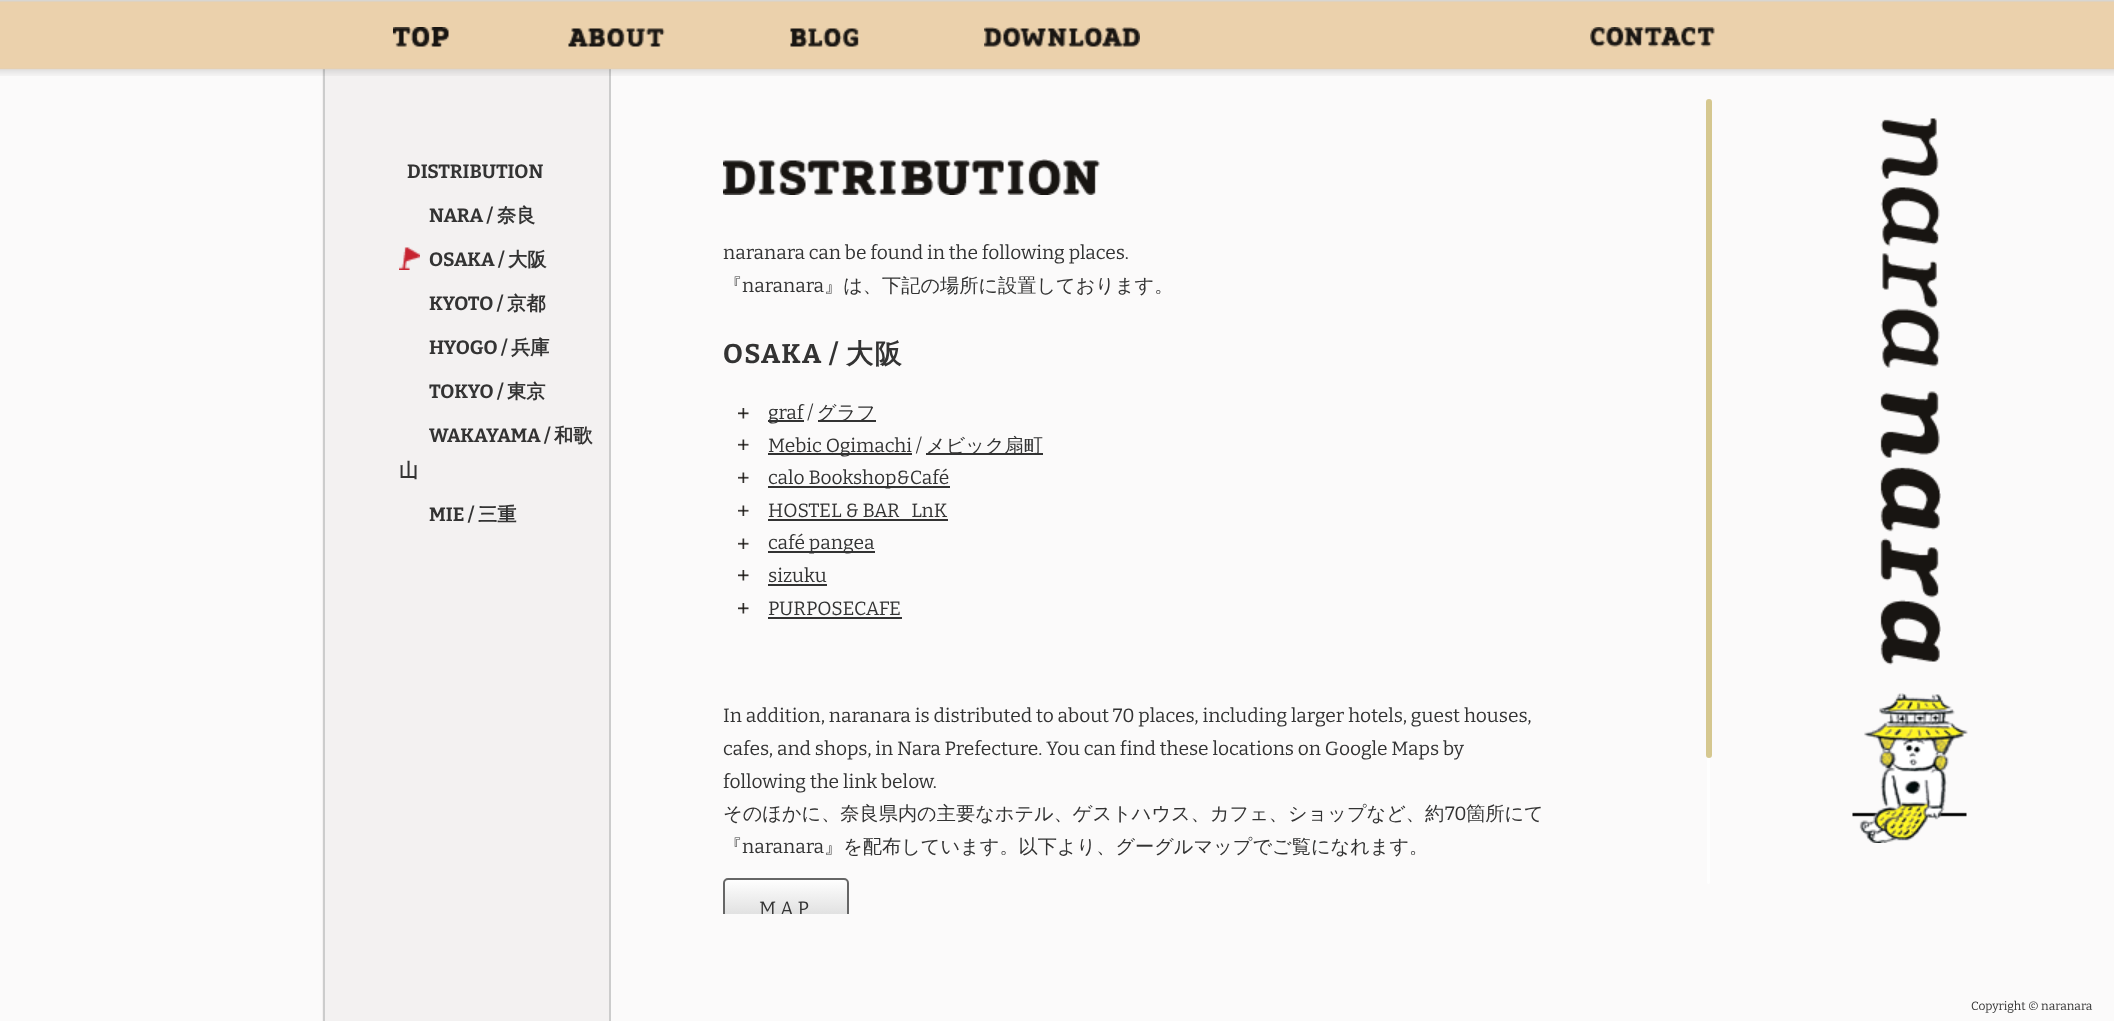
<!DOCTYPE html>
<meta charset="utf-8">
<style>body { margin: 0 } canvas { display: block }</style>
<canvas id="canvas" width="2114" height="1021"></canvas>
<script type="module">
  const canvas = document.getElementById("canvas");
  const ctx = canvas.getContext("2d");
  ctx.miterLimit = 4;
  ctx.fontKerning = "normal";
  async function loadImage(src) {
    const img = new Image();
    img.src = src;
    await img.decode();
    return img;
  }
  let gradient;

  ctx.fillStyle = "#e5e3df";
  ctx.fillRect(0, 0, 2114, 1021);
  ctx.fillStyle = "#fbfafa";
  ctx.fillRect(0, 69, 2114, 952);
  ctx.fillStyle = "#f3f1f1";
  ctx.fillRect(322, 69, 287, 952);
  ctx.fillStyle = "#cccccc";
  ctx.fillRect(609, 69, 2, 952);
  ctx.fillRect(323, 69, 2, 952);
  ctx.drawImage(await loadImage("img1.png"), 0, 0, 2114, 76);
  ctx.drawImage(await loadImage("img2.png"), 393, 27, 56, 20);
  ctx.drawImage(await loadImage("img3.png"), 568, 28, 97, 19);
  ctx.drawImage(await loadImage("img4.png"), 790, 28, 69, 19);
  ctx.drawImage(await loadImage("img5.png"), 984, 27, 156, 20);
  ctx.drawImage(await loadImage("img6.png"), 1590, 27, 125, 20);
  ctx.font = "bold 19.2px Bitter";
  ctx.fillStyle = "#333333";
  ctx.fillText("DISTRIBUTION", 407, 178);
  ctx.fillText("NARA /", 429, 222);
  ctx.font = "bold 19.2px WenQuanYi Zen Hei";
  ctx.fillText("奈良", 497, 222);
  ctx.drawImage(await loadImage("img7.png"), 399, 247, 21, 23);
  ctx.font = "bold 19.2px Bitter";
  ctx.fillText("OSAKA /", 429, 266);
  ctx.font = "bold 19.2px WenQuanYi Zen Hei";
  ctx.fillText("大阪", 508, 266);
  ctx.font = "bold 19.2px Bitter";
  ctx.fillText("KYOTO /", 429, 310);
  ctx.font = "bold 19.2px WenQuanYi Zen Hei";
  ctx.fillText("京都", 507, 310);
  ctx.font = "bold 19.2px Bitter";
  ctx.fillText("HYOGO /", 429, 354);
  ctx.font = "bold 19.2px WenQuanYi Zen Hei";
  ctx.fillText("兵庫", 511, 354);
  ctx.font = "bold 19.2px Bitter";
  ctx.fillText("TOKYO /", 429, 398);
  ctx.font = "bold 19.2px WenQuanYi Zen Hei";
  ctx.fillText("東京", 507, 398);
  ctx.font = "bold 19.2px Bitter";
  ctx.fillText("WAKAYAMA /", 429, 442);
  ctx.font = "bold 19.2px WenQuanYi Zen Hei";
  ctx.fillText("和歌", 554, 442);
  ctx.fillText("山", 399, 477);
  ctx.font = "bold 19.2px Bitter";
  ctx.fillText("MIE /", 429, 521);
  ctx.font = "bold 19.2px WenQuanYi Zen Hei";
  ctx.fillText("三重", 478, 521);
  ctx.drawImage(await loadImage("img8.png"), 723, 159, 377, 36);
  ctx.font = "19.2px Bitter";
  ctx.fillText("naranara can be found in the following places.", 723, 259);
  ctx.font = "500 19.2px WenQuanYi Zen Hei";
  ctx.fillText("『", 723, 292);
  ctx.font = "19.2px Bitter";
  ctx.fillText("naranara", 742, 292);
  ctx.font = "500 19.2px WenQuanYi Zen Hei";
  ctx.fillText("』は、下記の場所に設置しております。", 824, 292);
  ctx.letterSpacing = "1.5px";
  ctx.font = "bold 27px Bitter";
  ctx.fillText("OSAKA /", 723, 363);
  ctx.font = "bold 27px WenQuanYi Zen Hei";
  ctx.fillText("大阪", 846, 363);
  ctx.drawImage(await loadImage("img9.png"), 738, 408, 11, 11);
  ctx.fillRect(768, 420, 36, 2);
  ctx.letterSpacing = "0px";
  ctx.font = "19.2px Bitter";
  ctx.fillText("graf /", 768, 419);
  ctx.fillRect(818, 420, 58, 2);
  ctx.font = "500 19.2px WenQuanYi Zen Hei";
  ctx.fillText("グラフ", 817, 419);
  ctx.drawImage(await loadImage("img10.png"), 738, 439, 11, 11);
  ctx.fillRect(768, 453, 144, 2);
  ctx.font = "19.2px Bitter";
  ctx.fillText("Mebic Ogimachi /", 768, 452);
  ctx.fillRect(926, 453, 117, 2);
  ctx.font = "500 19.2px WenQuanYi Zen Hei";
  ctx.fillText("メビック扇町", 926, 452);
  ctx.drawImage(await loadImage("img10.png"), 738, 472, 11, 11);
  ctx.fillRect(768, 486, 182, 2);
  ctx.font = "19.2px Bitter";
  ctx.fillText("calo Bookshop&Café", 768, 484);
  ctx.drawImage(await loadImage("img10.png"), 738, 505, 11, 11);
  ctx.fillText("HOSTEL & BAR   LnK", 768, 517);
  ctx.fillRect(768, 519, 180, 2);
  ctx.drawImage(await loadImage("img10.png"), 738, 538, 11, 11);
  ctx.fillRect(768, 551, 107, 2);
  ctx.fillText("café pangea", 768, 549);
  ctx.drawImage(await loadImage("img9.png"), 738, 570, 11, 11);
  ctx.fillText("sizuku", 768, 582);
  ctx.fillRect(768, 584, 59, 2);
  ctx.drawImage(await loadImage("img9.png"), 738, 603, 11, 11);
  ctx.fillText("PURPOSECAFE", 768, 615);
  ctx.fillRect(768, 617, 134, 2);
  ctx.fillText("In addition, naranara is distributed to about 70 places, including larger hotels, guest houses,", 723, 722);
  ctx.fillText("cafes, and shops, in Nara Prefecture. You can find these locations on Google Maps by", 723, 755);
  ctx.fillText("following the link below.", 723, 788);
  ctx.font = "500 19.2px WenQuanYi Zen Hei";
  ctx.fillText("そのほかに、奈良県内の主要なホテル、ゲストハウス、カフェ、ショップなど、約", 723, 820);
  ctx.font = "19.2px Bitter";
  ctx.fillText("70", 1445, 820);
  ctx.font = "500 19.2px WenQuanYi Zen Hei";
  ctx.fillText("箇所にて", 1466, 820);
  ctx.fillText("『", 723, 853);
  ctx.font = "19.2px Bitter";
  ctx.fillText("naranara", 742, 853);
  ctx.font = "500 19.2px WenQuanYi Zen Hei";
  ctx.fillText("』を配布しています。以下より、グーグルマップでご覧になれます。", 824, 853);
  ctx.save();
  ctx.beginPath();
  ctx.roundRect(723, 878, 126, 63, 5);
  ctx.clip();
  gradient = ctx.createLinearGradient(725, 879, 725, 939);
  gradient.addColorStop(0, "#ffffff");
  gradient.addColorStop(1, "#cccccc");
  ctx.fillStyle = gradient;
  ctx.fillRect(723, 879, 126, 35);
  ctx.restore();
  ctx.save();
  ctx.beginPath();
  ctx.rect(723, 69, 975, 845);
  ctx.clip();
  ctx.beginPath();
  ctx.roundRect(724, 879, 124, 61, 4);
  ctx.strokeStyle = "#666666";
  ctx.lineWidth = 2;
  ctx.stroke();
  ctx.letterSpacing = "4.5px";
  ctx.font = "19.2px Bitter";
  ctx.fillText("MAP", 759, 915);
  ctx.restore();
  ctx.fillStyle = "#fefefe";
  ctx.beginPath();
  ctx.roundRect(1707, 99, 3, 785, 1.5);
  ctx.fill();
  ctx.fillStyle = "rgba(200, 182, 107, 0.75)";
  ctx.beginPath();
  ctx.roundRect(1706, 99, 6, 659, 3);
  ctx.fill();
  ctx.drawImage(await loadImage("img11.png"), 1880, 118, 61, 547);
  ctx.drawImage(await loadImage("img12.png"), 1852, 693, 116, 150);
  ctx.font = "12px Bitter";
  ctx.fillStyle = "#333333";
  ctx.fillText("Copyright © naranara", 1971, 1010);
</script>
